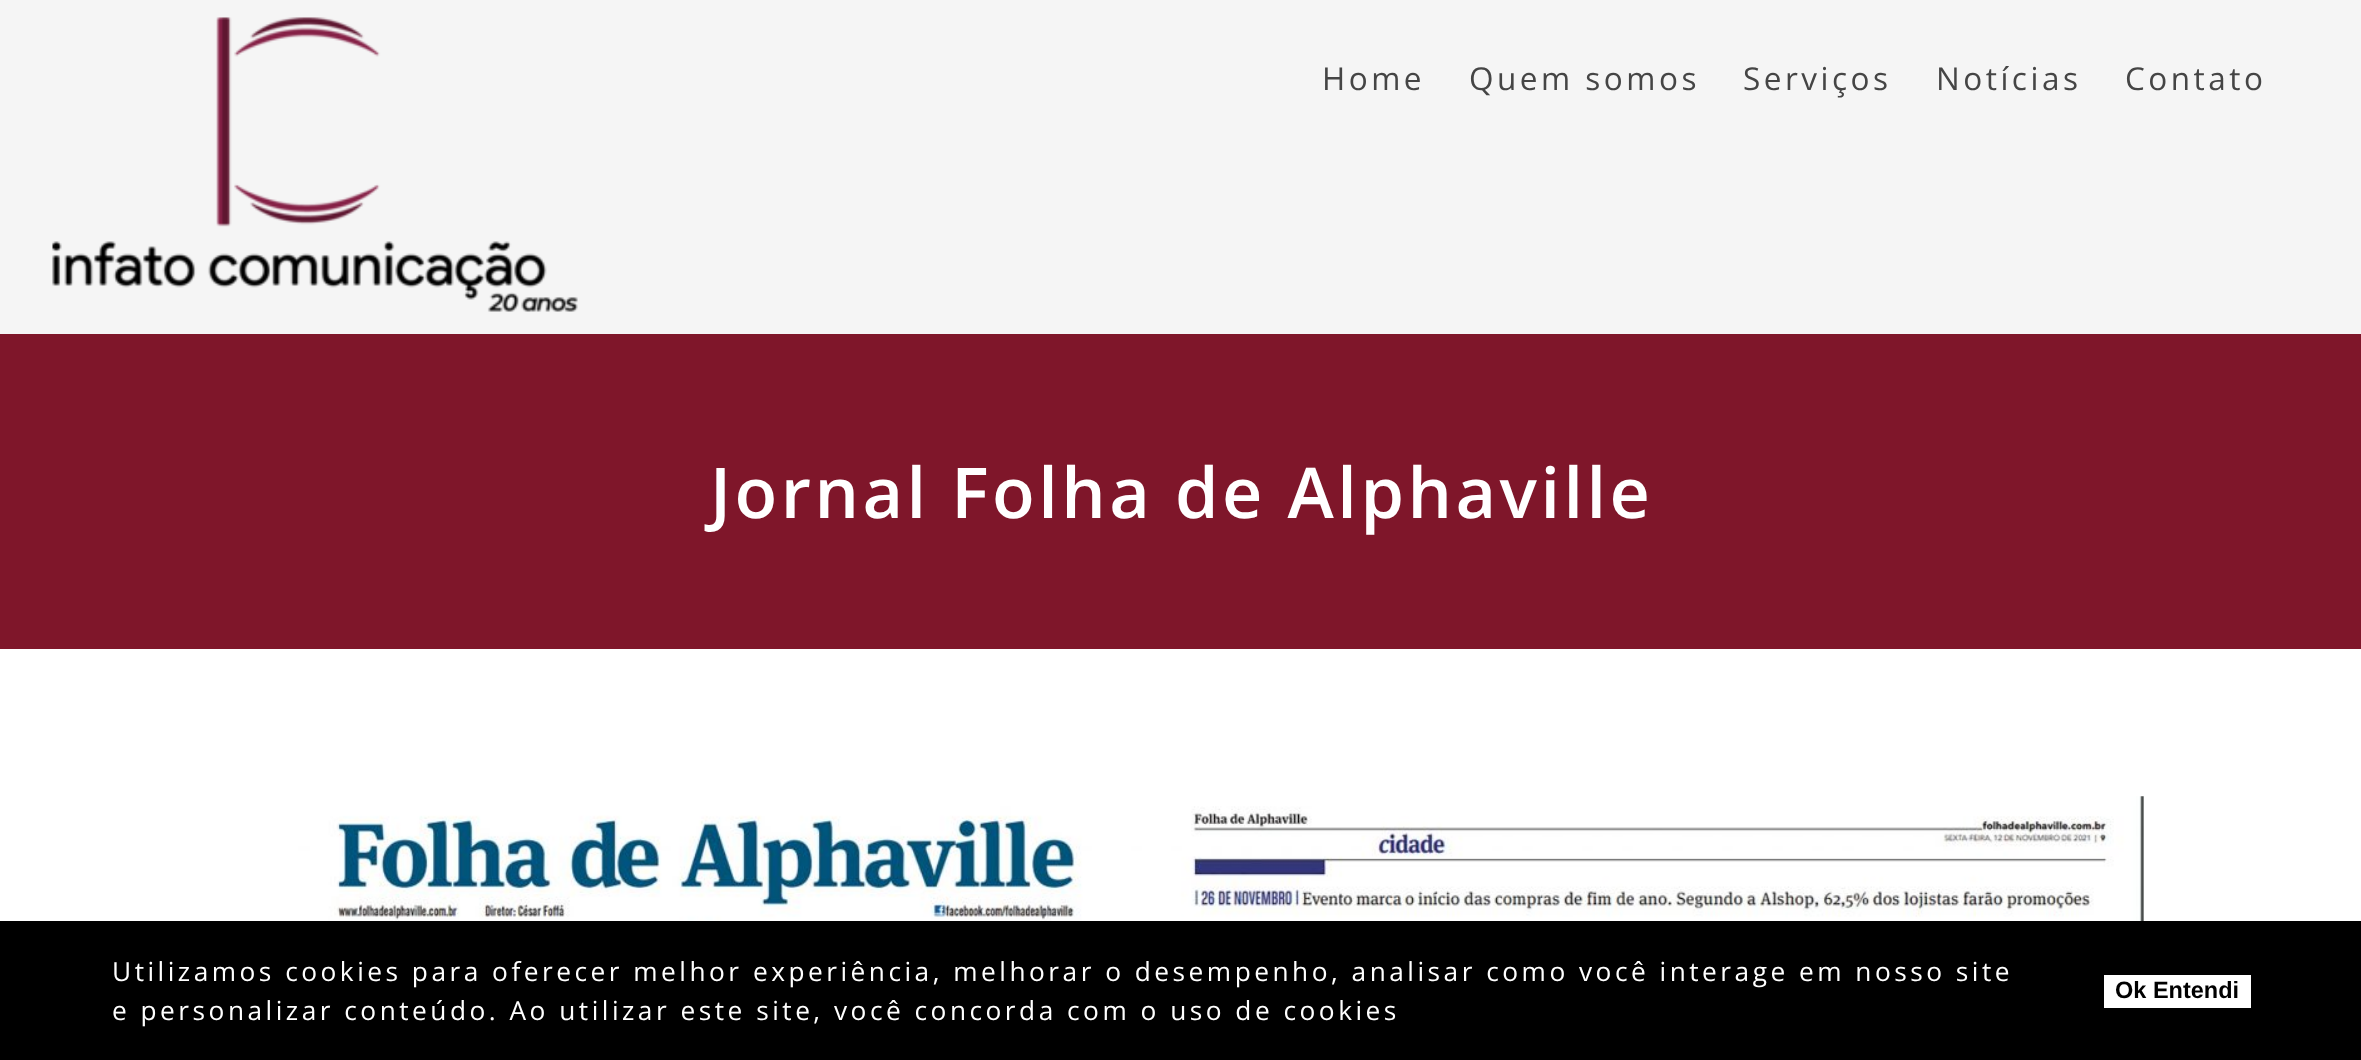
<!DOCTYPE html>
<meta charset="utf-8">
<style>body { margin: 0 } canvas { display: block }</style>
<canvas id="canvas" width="2361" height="1060"></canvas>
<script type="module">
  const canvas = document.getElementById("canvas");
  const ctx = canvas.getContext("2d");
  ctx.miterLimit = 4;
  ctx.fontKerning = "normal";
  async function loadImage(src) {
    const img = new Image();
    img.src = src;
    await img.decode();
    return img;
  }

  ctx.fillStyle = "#7f162a";
  ctx.fillRect(0, 0, 2361, 1060);
  ctx.fillStyle = "#f5f5f5";
  ctx.fillRect(0, 0, 2361, 334);
  ctx.drawImage(await loadImage("img1.png"), 52, 17, 526, 295);
  ctx.letterSpacing = "3.5px";
  ctx.font = "31.5px Open Sans";
  ctx.fillStyle = "#454545";
  ctx.fillText("Home", 1322, 90);
  ctx.fillText("Quem somos", 1469, 90);
  ctx.fillText("Serviços", 1743, 90);
  ctx.fillText("Notícias", 1936, 90);
  ctx.fillText("Contato", 2125, 90);
  ctx.font = "600 70px Open Sans";
  ctx.fillStyle = "#ffffff";
  ctx.fillText("Jornal Folha de Alphaville", 710, 518);
  ctx.fillRect(0, 649, 2361, 272);
  ctx.drawImage(await loadImage("img2.png"), 249, 796, 1895, 125);
  ctx.fillStyle = "#000000";
  ctx.fillRect(0, 921, 2361, 139);
  ctx.font = "26.25px Open Sans";
  ctx.fillStyle = "#ffffff";
  ctx.fillText("Utilizamos cookies para oferecer melhor experiência, melhorar o desempenho, analisar como você interage em nosso site", 112, 981);
  ctx.fillText("e personalizar conteúdo. Ao utilizar este site, você concorda com o uso de cookies", 112, 1020);
  ctx.fillRect(2104, 975, 147, 33);
  ctx.letterSpacing = "0px";
  ctx.font = "bold 23.5px Liberation Sans";
  ctx.fillStyle = "#000000";
  ctx.fillText("Ok Entendi", 2115, 998);
</script>
